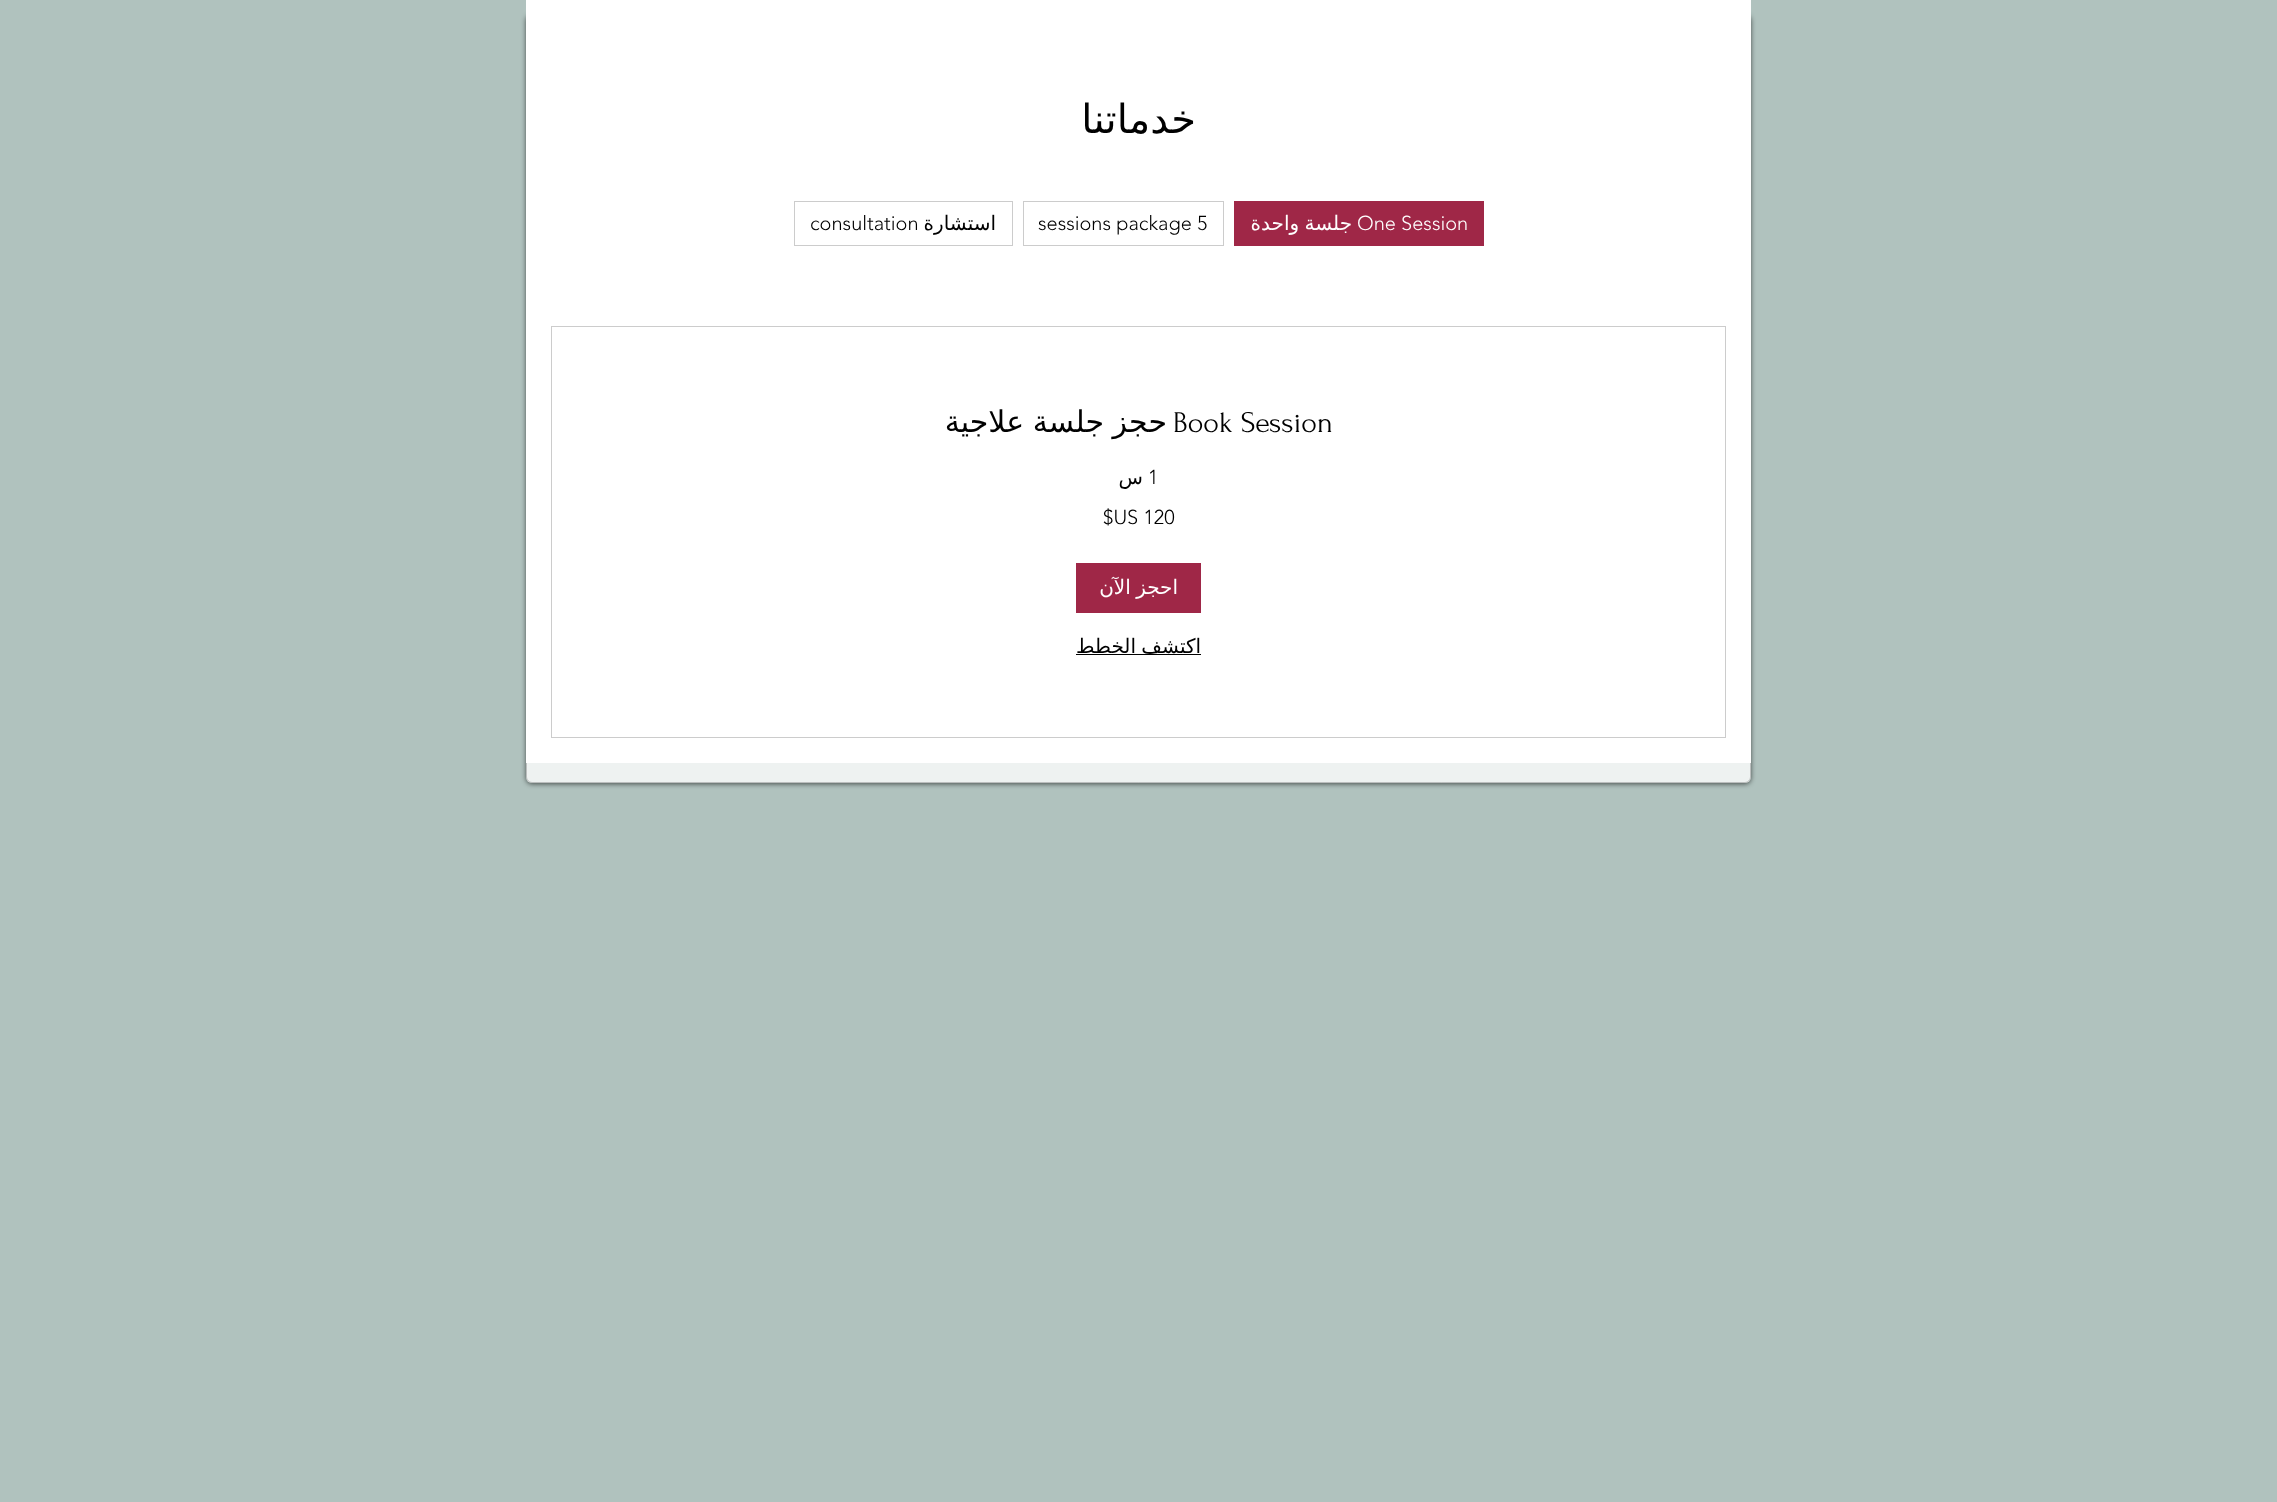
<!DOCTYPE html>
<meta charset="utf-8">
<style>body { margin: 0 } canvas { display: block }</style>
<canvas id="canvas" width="2277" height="1502"></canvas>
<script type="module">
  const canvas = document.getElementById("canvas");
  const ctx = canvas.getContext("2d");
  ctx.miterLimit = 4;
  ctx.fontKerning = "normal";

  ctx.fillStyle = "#b0c2be";
  ctx.fillRect(0, 0, 2277, 1502);
  ctx.save();
  ctx.beginPath();
  ctx.moveTo(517, 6);
  ctx.lineTo(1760, 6);
  ctx.lineTo(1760, 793);
  ctx.lineTo(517, 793);
  ctx.closePath();
  ctx.moveTo(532, 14);
  ctx.lineTo(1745, 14);
  ctx.bezierCurveTo(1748.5, 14, 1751, 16.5, 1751, 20);
  ctx.lineTo(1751, 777);
  ctx.bezierCurveTo(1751, 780.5, 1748.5, 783, 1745, 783);
  ctx.lineTo(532, 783);
  ctx.bezierCurveTo(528.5, 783, 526, 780.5, 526, 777);
  ctx.lineTo(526, 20);
  ctx.bezierCurveTo(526, 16.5, 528.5, 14, 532, 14);
  ctx.closePath();
  ctx.clip("evenodd");
  ctx.fillStyle = "rgba(0, 0, 0, 0.6)";
  ctx.filter = "blur(2.5px)";
  ctx.beginPath();
  ctx.roundRect(526, 15, 1225, 769, 6);
  ctx.fill();
  ctx.filter = "none";
  ctx.restore();
  ctx.fillStyle = "rgba(255, 255, 255, 0.79)";
  ctx.beginPath();
  ctx.roundRect(526, 14, 1225, 769, 6);
  ctx.fill();
  ctx.beginPath();
  ctx.roundRect(526.5, 14.5, 1224, 768, 5.5);
  ctx.strokeStyle = "rgba(0, 0, 0, 0.21)";
  ctx.stroke();
  ctx.fillStyle = "#ffffff";
  ctx.fillRect(526, 0, 1225, 763);
  ctx.direction = "rtl";
  ctx.font = "40px DejaVu Sans";
  ctx.fillStyle = "#000000";
  ctx.fillText("خدماتنا", 1196, 133);
  ctx.strokeStyle = "#cccccc";
  ctx.strokeRect(794.5, 201.5, 218, 44);
  ctx.direction = "ltr";
  ctx.font = "300 20px 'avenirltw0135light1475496'";
  ctx.fillText("consultation", 810, 230);
  ctx.direction = "rtl";
  ctx.font = "20px DejaVu Sans";
  ctx.fillText("استشارة", 996, 230);
  ctx.strokeRect(1023.5, 201.5, 200, 44);
  ctx.direction = "ltr";
  ctx.font = "300 20px 'avenirltw0135light1475496'";
  ctx.fillText("sessions package 5", 1038, 230);
  ctx.fillStyle = "#9f2747";
  ctx.fillRect(1234, 201, 250, 45);
  ctx.wordSpacing = "-1px";
  ctx.direction = "rtl";
  ctx.font = "20px DejaVu Sans";
  ctx.fillStyle = "#ffffff";
  ctx.fillText("جلسة واحدة", 1352, 230);
  ctx.wordSpacing = "0px";
  ctx.direction = "ltr";
  ctx.font = "300 20px 'avenirltw0135light1475496'";
  ctx.fillText("One Session", 1357, 230);
  ctx.strokeRect(551.5, 326.5, 1174, 411);
  ctx.wordSpacing = "-1px";
  ctx.direction = "rtl";
  ctx.font = "30px DejaVu Sans";
  ctx.fillStyle = "#000000";
  ctx.fillText("حجز جلسة علاجية", 1167, 432);
  ctx.wordSpacing = "0px";
  ctx.direction = "ltr";
  ctx.font = "30px Forum";
  ctx.fillText("Book Session", 1173, 432);
  ctx.direction = "rtl";
  ctx.font = "20px DejaVu Sans";
  ctx.fillText("س", 1143, 484);
  ctx.direction = "ltr";
  ctx.font = "300 20px 'avenirltw0135light1475496'";
  ctx.fillText("1", 1148, 484);
  ctx.fillText("$US 120", 1103, 524);
  ctx.fillStyle = "#9f2747";
  ctx.fillRect(1076, 563, 125, 50);
  ctx.wordSpacing = "-1px";
  ctx.direction = "rtl";
  ctx.font = "20px DejaVu Sans";
  ctx.fillStyle = "#ffffff";
  ctx.fillText("احجز الآن", 1178, 594);
  ctx.fillStyle = "#000000";
  ctx.fillText("اكتشف الخطط", 1201, 653);
  ctx.fillRect(1076, 654, 125, 1);
</script>
